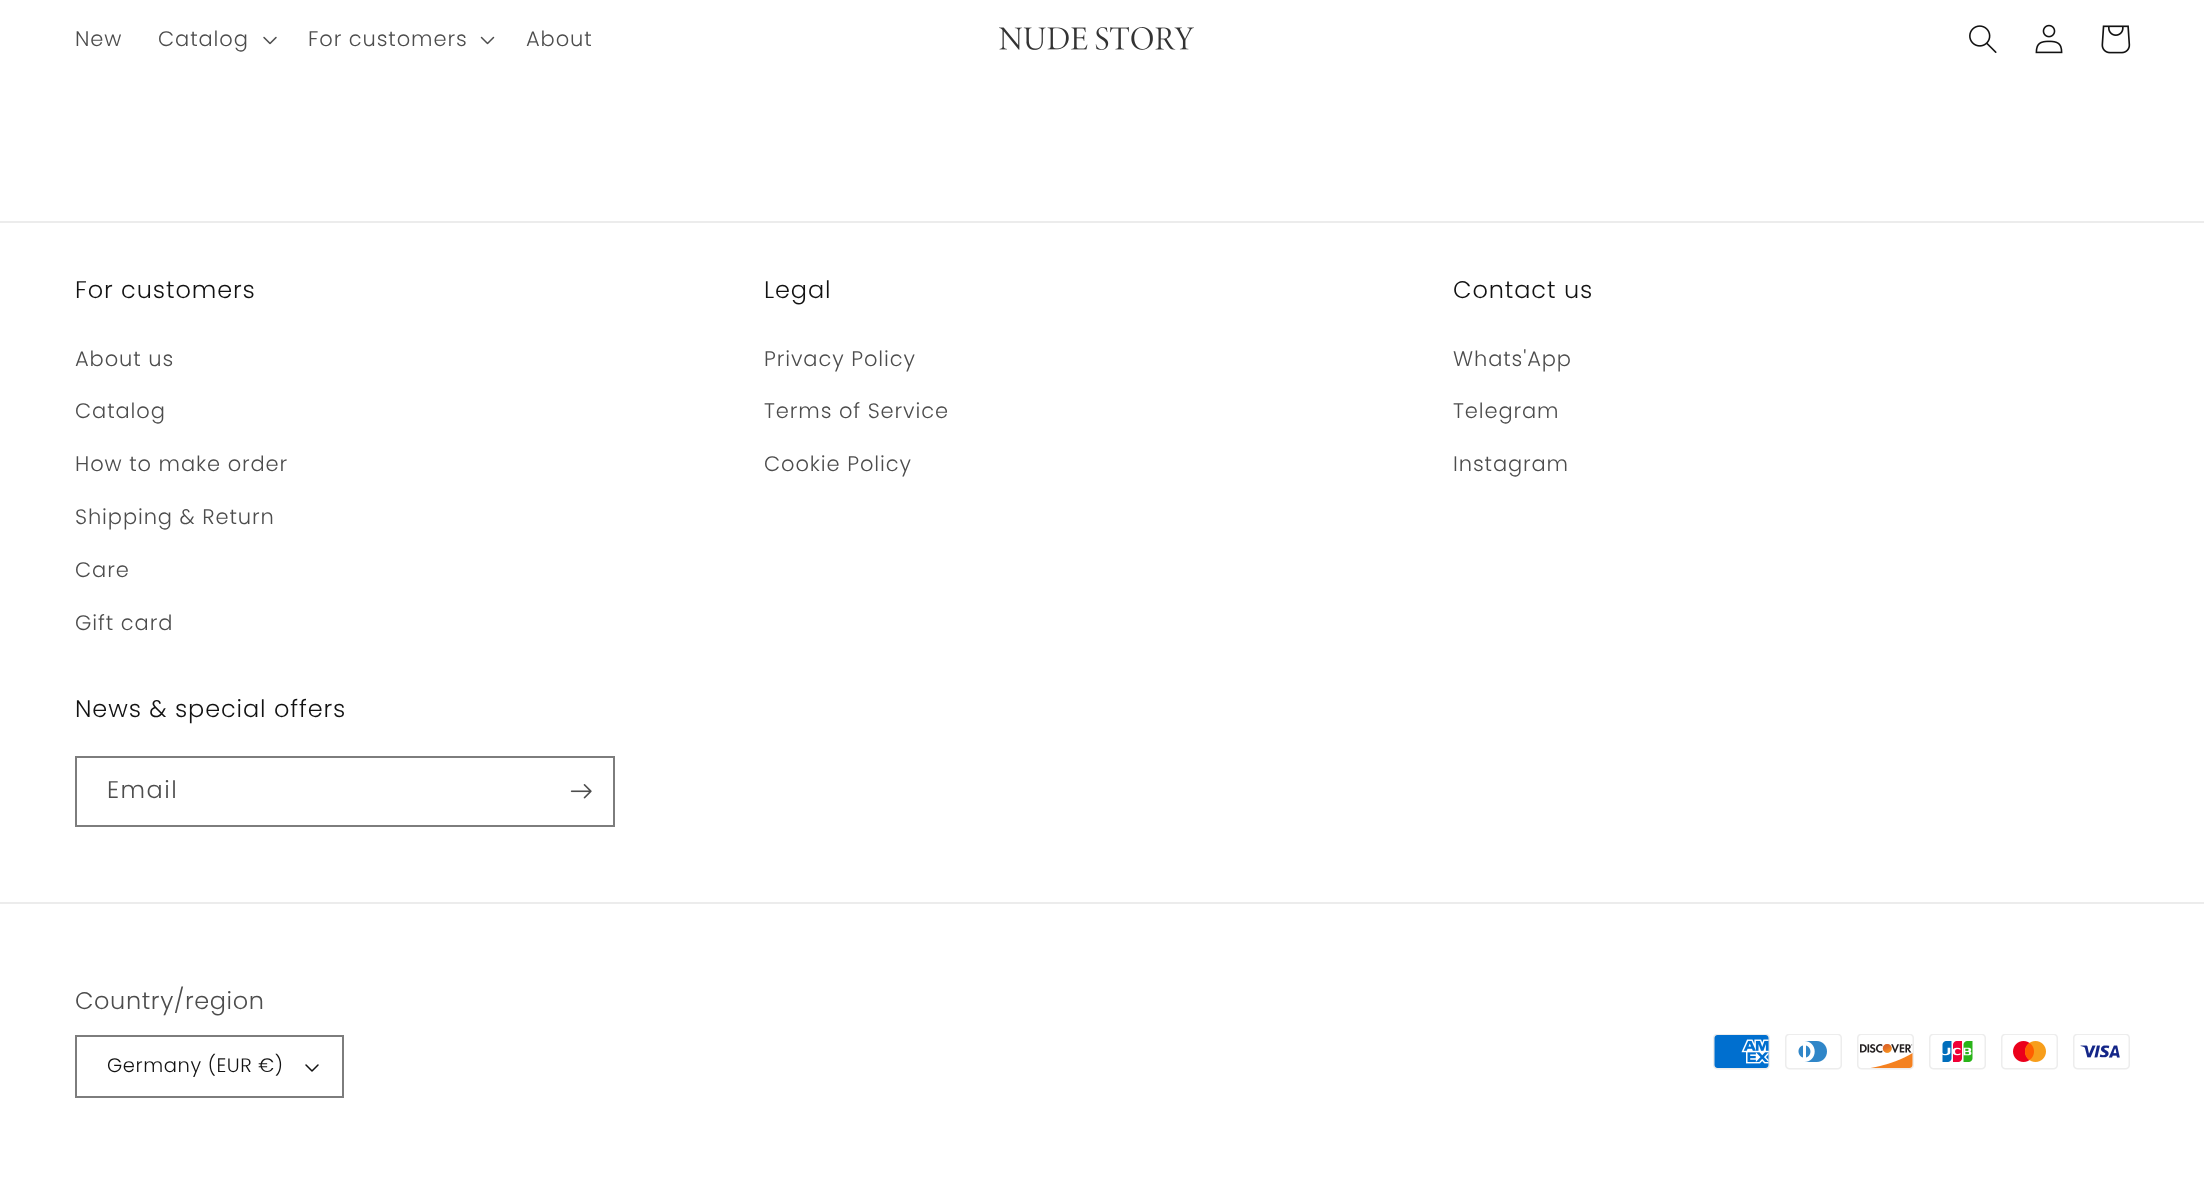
<!DOCTYPE html>
<meta charset="utf-8">
<style>body { margin: 0 } canvas { display: block }</style>
<canvas id="canvas" width="2204" height="1187"></canvas>
<script type="module">
  const canvas = document.getElementById("canvas");
  const ctx = canvas.getContext("2d");
  ctx.miterLimit = 4;
  ctx.fontKerning = "normal";
  async function loadImage(src) {
    const img = new Image();
    img.src = src;
    await img.decode();
    return img;
  }

  ctx.fillStyle = "#ffffff";
  ctx.fillRect(0, 0, 2204, 1187);
  ctx.letterSpacing = "0.9px";
  ctx.font = "300 21px Poppins";
  ctx.fillStyle = "#4d4d4d";
  ctx.fillText("New", 75, 46);
  ctx.fillText("Catalog", 158, 46);
  ctx.drawImage(await loadImage("img1.png"), 263, 36, 14, 9);
  ctx.fillText("For customers", 308, 46);
  ctx.drawImage(await loadImage("img2.png"), 480, 36, 15, 9);
  ctx.fillText("About", 526, 46);
  ctx.drawImage(await loadImage("img3.png"), 999, 27, 195, 23);
  ctx.drawImage(await loadImage("img4.png"), 1969, 25, 28, 28);
  ctx.drawImage(await loadImage("img5.png"), 2035, 24, 28, 30);
  ctx.drawImage(await loadImage("img6.png"), 2101, 25, 30, 29);
  ctx.fillStyle = "#ececec";
  ctx.fillRect(0, 221, 2204, 2);
  ctx.font = "300 24px Poppins";
  ctx.fillStyle = "#121212";
  ctx.fillText("For customers", 75, 298);
  ctx.font = "300 21px Poppins";
  ctx.fillStyle = "#4d4d4d";
  ctx.fillText("About us", 75, 366);
  ctx.fillText("Catalog", 75, 418);
  ctx.fillText("How to make order", 75, 471);
  ctx.fillText("Shipping & Return", 75, 524);
  ctx.fillText("Care", 75, 577);
  ctx.fillText("Gift card", 75, 630);
  ctx.font = "300 24px Poppins";
  ctx.fillStyle = "#121212";
  ctx.fillText("Legal", 764, 298);
  ctx.font = "300 21px Poppins";
  ctx.fillStyle = "#4d4d4d";
  ctx.fillText("Privacy Policy", 764, 366);
  ctx.fillText("Terms of Service", 764, 418);
  ctx.fillText("Cookie Policy", 764, 471);
  ctx.font = "300 24px Poppins";
  ctx.fillStyle = "#121212";
  ctx.fillText("Contact us", 1453, 298);
  ctx.font = "300 21px Poppins";
  ctx.fillStyle = "#4d4d4d";
  ctx.fillText("Whats'App", 1453, 366);
  ctx.fillText("Telegram", 1453, 418);
  ctx.fillText("Instagram", 1453, 471);
  ctx.font = "300 24px Poppins";
  ctx.fillStyle = "#121212";
  ctx.fillText("News & special offers", 75, 717);
  ctx.strokeStyle = "#7d7d7d";
  ctx.lineWidth = 2;
  ctx.strokeRect(76, 757, 538, 69);
  ctx.letterSpacing = "1.5px";
  ctx.fillStyle = "#4d4d4d";
  ctx.fillText("Email", 107, 798);
  ctx.drawImage(await loadImage("img7.png"), 570, 784, 22, 15);
  ctx.fillStyle = "#ececec";
  ctx.fillRect(0, 902, 2204, 2);
  ctx.letterSpacing = "0.6px";
  ctx.fillStyle = "#4d4d4d";
  ctx.fillText("Country/region", 75, 1009);
  ctx.drawImage(await loadImage("img8.png"), 305, 1064, 14, 8);
  ctx.strokeRect(76, 1036, 267, 61);
  ctx.font = "300 19.5px Poppins";
  ctx.fillStyle = "#121212";
  ctx.fillText("Germany (EUR €)", 107, 1072);
  ctx.drawImage(await loadImage("img9.png"), 1713, 1034, 57, 36);
  ctx.drawImage(await loadImage("img10.png"), 1785, 1034, 57, 36);
  ctx.drawImage(await loadImage("img11.png"), 1857, 1034, 57, 36);
  ctx.drawImage(await loadImage("img12.png"), 1929, 1034, 57, 36);
  ctx.drawImage(await loadImage("img13.png"), 2001, 1034, 57, 36);
  ctx.drawImage(await loadImage("img14.png"), 2073, 1034, 57, 36);
</script>
